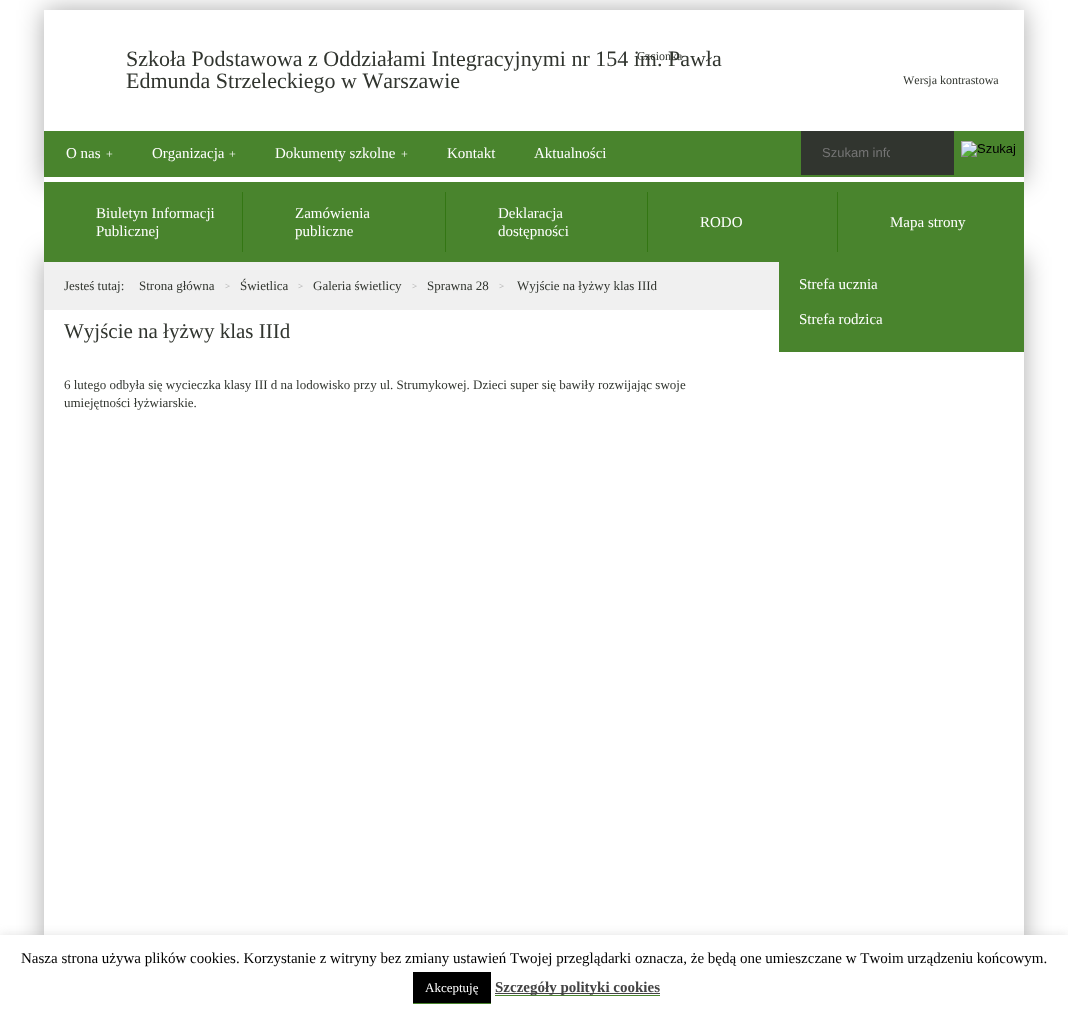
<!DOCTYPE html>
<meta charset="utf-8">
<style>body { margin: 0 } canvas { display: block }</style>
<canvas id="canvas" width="1068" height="1016"></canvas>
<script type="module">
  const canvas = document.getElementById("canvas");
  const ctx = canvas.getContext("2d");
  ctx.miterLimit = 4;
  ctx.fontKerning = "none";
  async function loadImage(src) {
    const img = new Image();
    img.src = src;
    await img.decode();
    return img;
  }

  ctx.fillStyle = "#ffffff";
  ctx.fillRect(0, 0, 1068, 1016);
  ctx.save();
  ctx.beginPath();
  ctx.moveTo(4, 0);
  ctx.lineTo(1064, 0);
  ctx.lineTo(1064, 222);
  ctx.lineTo(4, 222);
  ctx.closePath();
  ctx.moveTo(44, 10);
  ctx.lineTo(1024, 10);
  ctx.lineTo(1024, 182);
  ctx.lineTo(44, 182);
  ctx.closePath();
  ctx.clip("evenodd");
  ctx.fillStyle = "rgba(0, 0, 0, 0.33)";
  ctx.filter = "blur(13px)";
  ctx.beginPath();
  ctx.rect(44, 10, 980, 172);
  ctx.fill();
  ctx.filter = "none";
  ctx.restore();
  ctx.font = "22px Liberation Serif";
  ctx.fillStyle = "#31352f";
  ctx.fillText("Szkoła Podstawowa z Oddziałami Integracyjnymi nr 154 im. Pawła", 126, 66);
  ctx.fillText("Edmunda Strzeleckiego w Warszawie", 126, 88);
  ctx.font = "12px Liberation Serif";
  ctx.fillText("Czcionka", 637, 60);
  ctx.fillText("Wersja kontrastowa", 903, 84);
  ctx.fillStyle = "#49842d";
  ctx.fillRect(44, 131, 980, 46);
  ctx.font = "15px Liberation Serif";
  ctx.fillStyle = "#ffffff";
  ctx.fillText("O nas", 66, 158);
  ctx.font = "12px Liberation Serif";
  ctx.fillText("+", 106, 158);
  ctx.font = "15px Liberation Serif";
  ctx.fillText("Organizacja", 152, 158);
  ctx.font = "12px Liberation Serif";
  ctx.fillText("+", 229, 158);
  ctx.font = "15px Liberation Serif";
  ctx.fillText("Dokumenty szkolne", 275, 158);
  ctx.font = "12px Liberation Serif";
  ctx.fillText("+", 401, 158);
  ctx.font = "15px Liberation Serif";
  ctx.fillText("Kontakt", 447, 158);
  ctx.fillText("Aktualności", 534, 158);
  ctx.fillStyle = "#31352f";
  ctx.fillRect(801, 131, 153, 44);
  ctx.save();
  ctx.beginPath();
  ctx.rect(822, 145, 68, 15);
  ctx.clip();
  ctx.font = "13px Liberation Sans";
  ctx.fillStyle = "#757575";
  ctx.fillText("Szukam info", 822, 157);
  ctx.restore();
  ctx.drawImage(await loadImage("img1.png"), 961, 141, 54, 16);
  ctx.save();
  ctx.beginPath();
  ctx.moveTo(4, 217);
  ctx.lineTo(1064, 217);
  ctx.lineTo(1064, 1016);
  ctx.lineTo(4, 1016);
  ctx.closePath();
  ctx.moveTo(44, 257);
  ctx.lineTo(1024, 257);
  ctx.lineTo(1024, 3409);
  ctx.lineTo(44, 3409);
  ctx.closePath();
  ctx.clip("evenodd");
  ctx.fillStyle = "rgba(0, 0, 0, 0.33)";
  ctx.filter = "blur(13px)";
  ctx.beginPath();
  ctx.rect(44, 257, 980, 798);
  ctx.fill();
  ctx.filter = "none";
  ctx.restore();
  ctx.fillStyle = "#49842d";
  ctx.fillRect(44, 182, 980, 80);
  ctx.fillStyle = "#ffffff";
  ctx.fillText("Biuletyn Informacji", 96, 218);
  ctx.fillText("Publicznej", 96, 236);
  ctx.fillStyle = "#337613";
  ctx.fillRect(242, 192, 1, 60);
  ctx.fillStyle = "#ffffff";
  ctx.fillText("Zamówienia", 295, 218);
  ctx.fillText("publiczne", 295, 236);
  ctx.fillStyle = "#337613";
  ctx.fillRect(445, 192, 1, 60);
  ctx.fillStyle = "#ffffff";
  ctx.fillText("Deklaracja", 498, 218);
  ctx.fillText("dostępności", 498, 236);
  ctx.fillStyle = "#337613";
  ctx.fillRect(647, 192, 1, 60);
  ctx.fillStyle = "#ffffff";
  ctx.fillText("RODO", 700, 227);
  ctx.fillStyle = "#337613";
  ctx.fillRect(837, 192, 1, 60);
  ctx.fillStyle = "#ffffff";
  ctx.fillText("Mapa strony", 890, 227);
  ctx.fillStyle = "#f0f0f0";
  ctx.fillRect(44, 262, 735, 48);
  ctx.font = "13px Liberation Serif";
  ctx.fillStyle = "#31352f";
  ctx.fillText("Jesteś tutaj:", 64, 290);
  ctx.fillText("Strona główna", 139, 290);
  ctx.font = "9px Liberation Serif";
  ctx.fillStyle = "#aaaaaa";
  ctx.fillText(">", 225, 289);
  ctx.font = "13px Liberation Serif";
  ctx.fillStyle = "#31352f";
  ctx.fillText("Świetlica", 240, 290);
  ctx.font = "9px Liberation Serif";
  ctx.fillStyle = "#aaaaaa";
  ctx.fillText(">", 298, 289);
  ctx.font = "13px Liberation Serif";
  ctx.fillStyle = "#31352f";
  ctx.fillText("Galeria świetlicy", 313, 290);
  ctx.font = "9px Liberation Serif";
  ctx.fillStyle = "#aaaaaa";
  ctx.fillText(">", 412, 289);
  ctx.font = "13px Liberation Serif";
  ctx.fillStyle = "#31352f";
  ctx.fillText("Sprawna 28", 427, 290);
  ctx.font = "9px Liberation Serif";
  ctx.fillStyle = "#aaaaaa";
  ctx.fillText(">", 499, 289);
  ctx.font = "13px Liberation Serif";
  ctx.fillStyle = "#31352f";
  ctx.fillText("Wyjście na łyżwy klas IIId", 517, 290);
  ctx.font = "21px Liberation Serif";
  ctx.fillText("Wyjście na łyżwy klas IIId", 64, 338);
  ctx.font = "13px Liberation Serif";
  ctx.fillText("6 lutego odbyła się wycieczka klasy III d na lodowisko przy ul. Strumykowej. Dzieci super się bawiły rozwijając swoje", 64, 389);
  ctx.fillText("umiejętności łyżwiarskie.", 64, 407);
  ctx.fillStyle = "#49842d";
  ctx.fillRect(779, 262, 245, 90);
  ctx.font = "15px Liberation Serif";
  ctx.fillStyle = "#ffffff";
  ctx.fillText("Strefa ucznia", 799, 289);
  ctx.fillText("Strefa rodzica", 799, 324);
  ctx.fillStyle = "rgba(172, 171, 171, 0.3)";
  ctx.filter = "blur(5px)";
  ctx.beginPath();
  ctx.rect(0, 934, 1068, 81);
  ctx.fill();
  ctx.filter = "none";
  ctx.fillStyle = "#ffffff";
  ctx.fillRect(0, 935, 1068, 81);
  ctx.fillStyle = "#000000";
  ctx.fillText("Nasza strona używa plików cookies. Korzystanie z witryny bez zmiany ustawień Twojej przeglądarki oznacza, że będą one umieszczane w Twoim urządzeniu końcowym.", 21, 963);
  ctx.fillRect(413, 972, 78, 31);
  ctx.fillStyle = "#49842d";
  ctx.fillRect(413, 1003, 78, 1);
  ctx.font = "13px Liberation Serif";
  ctx.fillStyle = "#ffffff";
  ctx.fillText("Akceptuję", 425, 992);
  ctx.fillStyle = "#49842d";
  ctx.fillRect(495, 995, 165, 1);
  ctx.fillStyle = "#444444";
  ctx.fillRect(495, 993, 165, 1);
  ctx.font = "bold 15px Liberation Serif";
  ctx.fillText("Szczegóły polityki cookies", 495, 992);
</script>
